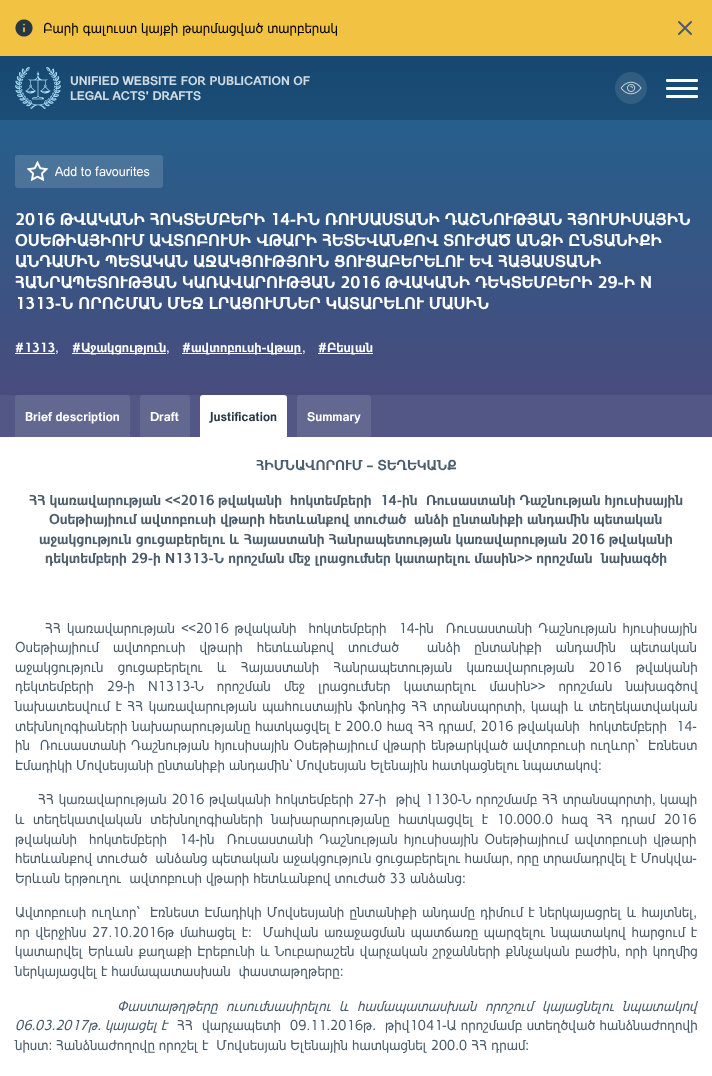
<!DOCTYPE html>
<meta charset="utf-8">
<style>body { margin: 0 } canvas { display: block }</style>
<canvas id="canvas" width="712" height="1076"></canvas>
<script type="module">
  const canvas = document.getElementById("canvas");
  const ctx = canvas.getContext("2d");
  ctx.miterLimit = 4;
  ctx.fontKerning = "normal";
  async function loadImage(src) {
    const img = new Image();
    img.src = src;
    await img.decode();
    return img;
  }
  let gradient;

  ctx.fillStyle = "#ffffff";
  ctx.fillRect(0, 0, 712, 1076);
  gradient = ctx.createLinearGradient(356, 0, 356, 120);
  gradient.addColorStop(0, "#14436b");
  gradient.addColorStop(1, "#1b4d76");
  ctx.fillStyle = gradient;
  ctx.fillRect(0, 56, 712, 64);
  ctx.fillStyle = "#f2c342";
  ctx.fillRect(0, 0, 712, 56);
  ctx.drawImage(await loadImage("img1.png"), 15, 19, 18, 18);
  ctx.font = "14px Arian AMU";
  ctx.fillStyle = "#000000";
  ctx.fillText("Բարի գալուստ կայքի թարմացված տարբերակ", 43, 33);
  ctx.beginPath();
  ctx.moveTo(691, 22);
  ctx.lineTo(679, 34);
  ctx.moveTo(679, 22);
  ctx.lineTo(691, 34);
  ctx.strokeStyle = "#4b5c6a";
  ctx.lineWidth = 2;
  ctx.lineCap = "round";
  ctx.lineJoin = "round";
  ctx.stroke();
  ctx.drawImage(await loadImage("img2.png"), 15, 67, 46, 42);
  ctx.font = "bold 12.25px Arian AMU";
  ctx.fillStyle = "#d1dbe3";
  ctx.fillText("UNIFIED WEBSITE FOR PUBLICATION OF", 70, 85);
  ctx.fillText("LEGAL ACTS' DRAFTS", 70, 100);
  ctx.drawImage(await loadImage("img3.png"), 615, 72, 32, 32);
  ctx.fillStyle = "#ffffff";
  ctx.beginPath();
  ctx.roundRect(666, 79, 32, 3, 1);
  ctx.fill();
  ctx.beginPath();
  ctx.roundRect(666, 87, 32, 3, 1);
  ctx.fill();
  ctx.beginPath();
  ctx.roundRect(666, 95, 32, 3, 1);
  ctx.fill();
  gradient = ctx.createLinearGradient(356, 120, 356, 395);
  gradient.addColorStop(0, "#265f8c");
  gradient.addColorStop(1, "#484c7d");
  ctx.fillStyle = gradient;
  ctx.fillRect(0, 120, 712, 275);
  ctx.fillStyle = "rgba(255, 255, 255, 0.15)";
  ctx.beginPath();
  ctx.roundRect(15, 155, 148, 33, 3);
  ctx.fill();
  ctx.drawImage(await loadImage("img4.png"), 27, 161, 21, 20);
  ctx.font = "13.1px Arian AMU";
  ctx.fillStyle = "#ffffff";
  ctx.fillText("Add to favourites", 55, 176);
  ctx.font = "bold 16.65px Arian AMU";
  ctx.fillText("2016 ԹՎԱԿԱՆԻ ՀՈԿՏԵՄԲԵՐԻ 14-ԻՆ ՌՈՒՍԱՍՏԱՆԻ ԴԱՇՆՈՒԹՅԱՆ ՀՅՈՒՍԻՍԱՅԻՆ", 15, 225);
  ctx.fillText("ՕՍԵԹԻԱՅԻՈՒՄ ԱՎՏՈԲՈՒՍԻ ՎԹԱՐԻ ՀԵՏԵՎԱՆՔՈՎ ՏՈՒԺԱԾ ԱՆՁԻ ԸՆՏԱՆԻՔԻ", 15, 246);
  ctx.fillText("ԱՆԴԱՄԻՆ ՊԵՏԱԿԱՆ ԱՋԱԿՑՈՒԹՅՈՒՆ ՑՈՒՑԱԲԵՐԵԼՈՒ ԵՎ ՀԱՅԱՍՏԱՆԻ", 15, 267);
  ctx.fillText("ՀԱՆՐԱՊԵՏՈՒԹՅԱՆ ԿԱՌԱՎԱՐՈՒԹՅԱՆ 2016 ԹՎԱԿԱՆԻ ԴԵԿՏԵՄԲԵՐԻ 29-Ի N", 15, 288);
  ctx.fillText("1313-Ն ՈՐՈՇՄԱՆ ՄԵՋ ԼՐԱՑՈՒՄՆԵՐ ԿԱՏԱՐԵԼՈՒ ՄԱՍԻՆ", 15, 309);
  ctx.font = "bold 13.1px Arian AMU";
  ctx.fillText("#1313", 15, 352);
  ctx.fillRect(15, 353, 40, 1);
  ctx.font = "14px Arian AMU";
  ctx.fillText(",", 55, 352);
  ctx.fillRect(72, 353, 94, 1);
  ctx.font = "bold 13.1px Arian AMU";
  ctx.fillText("#Աջակցություն", 72, 352);
  ctx.font = "14px Arian AMU";
  ctx.fillText(",", 166, 352);
  ctx.fillRect(182, 353, 120, 1);
  ctx.font = "bold 13.1px Arian AMU";
  ctx.fillText("#ավտոբուսի-վթար", 182, 352);
  ctx.font = "14px Arian AMU";
  ctx.fillText(",", 302, 352);
  ctx.fillRect(318, 353, 55, 1);
  ctx.font = "bold 13.1px Arian AMU";
  ctx.fillText("#Բեսլան", 318, 352);
  ctx.fillStyle = "#525785";
  ctx.fillRect(0, 395, 712, 42);
  ctx.fillStyle = "#636891";
  ctx.beginPath();
  ctx.roundRect(15, 395, 115, 42, [3, 3, 0, 0]);
  ctx.fill();
  ctx.font = "bold 12.5px Arian AMU";
  ctx.fillStyle = "#ffffff";
  ctx.fillText("Brief description", 25, 421);
  ctx.fillStyle = "#636891";
  ctx.beginPath();
  ctx.roundRect(140, 395, 50, 42, [3, 3, 0, 0]);
  ctx.fill();
  ctx.fillStyle = "#ffffff";
  ctx.fillText("Draft", 150, 421);
  ctx.beginPath();
  ctx.roundRect(200, 395, 87, 42, [3, 3, 0, 0]);
  ctx.fill();
  ctx.fillStyle = "#273845";
  ctx.fillText("Justification", 210, 421);
  ctx.fillStyle = "#636891";
  ctx.beginPath();
  ctx.roundRect(297, 395, 74, 42, [3, 3, 0, 0]);
  ctx.fill();
  ctx.fillStyle = "#ffffff";
  ctx.fillText("Summary", 307, 421);
  ctx.font = "bold 14px Arian AMU";
  ctx.fillStyle = "#4b5c6a";
  ctx.fillText("ՀԻՄՆԱՎՈՐՈՒՄ – ՏԵՂԵԿԱՆՔ", 256, 470);
  ctx.fillText("ՀՀ կառավարության <<2016 թվականի", 29, 505);
  ctx.fillText("հոկտեմբերի", 290, 505);
  ctx.fillText("14-ին", 380, 505);
  ctx.fillText("Ռուսաստանի Դաշնության հյուսիսային", 426, 505);
  ctx.fillText("Օսեթիայիում ավտոբուսի վթարի հետևանքով տուժած", 49, 524);
  ctx.fillText("անձի ընտանիքի անդամին պետական", 414, 524);
  ctx.fillText("աջակցություն ցուցաբերելու և Հայաստանի Հանրապետության կառավարության 2016 թվականի", 39, 544);
  ctx.fillText("դեկտեմբերի 29-ի N1313-Ն որոշման մեջ լրացումներ կատարելու մասին>> որոշման", 45, 563);
  ctx.fillText("նախագծի", 601, 563);
  ctx.wordSpacing = "2px";
  ctx.font = "14px Arian AMU";
  ctx.fillText("ՀՀ կառավարության <<2016 թվականի  հոկտեմբերի  14-ին  Ռուսաստանի Դաշնության հյուսիսային", 45, 633);
  ctx.wordSpacing = "10px";
  ctx.fillText("Օսեթիայիում ավտոբուսի վթարի հետևանքով տուժած  անձի ընտանիքի անդամին պետական", 15, 652);
  ctx.wordSpacing = "10.25px";
  ctx.fillText("աջակցություն ցուցաբերելու և Հայաստանի Հանրապետության կառավարության 2016 թվականի", 15, 672);
  ctx.wordSpacing = "9.25px";
  ctx.fillText("դեկտեմբերի 29-ի N1313-Ն որոշման մեջ լրացումներ կատարելու մասին>> որոշման նախագծով", 15, 691);
  ctx.wordSpacing = "1.5px";
  ctx.fillText("նախատեսվում է ՀՀ կառավարության պահուստային ֆոնդից ՀՀ տրանսպորտի, կապի և տեղեկատվական", 15, 711);
  ctx.wordSpacing = "0.6px";
  ctx.fillText("տեխնոլոգիաների նախարարությանը հատկացվել է 200.0 հազ ՀՀ դրամ, 2016 թվականի  հոկտեմբերի  14-", 15, 731);
  ctx.wordSpacing = "0.9px";
  ctx.fillText("ին  Ռուսաստանի Դաշնության հյուսիսային Օսեթիայիում վթարի ենթարկված ավտոբուսի ուղևոր`  Էռնեստ", 15, 750);
  ctx.wordSpacing = "0px";
  ctx.fillText("Էմադիկի Մովսեսյանի ընտանիքի անդամին` Մովսեսյան Ելենային հատկացնելու նպատակով:", 15, 770);
  ctx.wordSpacing = "0.75px";
  ctx.fillText("ՀՀ կառավարության 2016 թվականի հոկտեմբերի 27-ի  թիվ 1130-Ն որոշմամբ ՀՀ տրանսպորտի, կապի", 38, 804);
  ctx.wordSpacing = "4.5px";
  ctx.fillText("և տեղեկատվական տեխնոլոգիաների նախարարությանը հատկացվել է 10.000.0 հազ ՀՀ դրամ 2016", 15, 824);
  ctx.wordSpacing = "2.1px";
  ctx.fillText("թվականի  հոկտեմբերի  14-ին  Ռուսաստանի Դաշնության հյուսիսային Օսեթիայիում ավտոբուսի վթարի", 15, 844);
  ctx.wordSpacing = "0.1px";
  ctx.fillText("հետևանքով տուժած  անձանց պետական աջակցություն ցուցաբերելու համար, որը տրամադրվել է Մոսկվա-", 15, 863);
  ctx.wordSpacing = "0px";
  ctx.fillText("Երևան երթուղու  ավտոբուսի վթարի հետևանքով տուժած 33 անձանց:", 15, 883);
  ctx.wordSpacing = "1.25px";
  ctx.fillText("Ավտոբուսի ուղևոր`  Էռնեստ Էմադիկի Մովսեսյանի ընտանիքի անդամը դիմում է ներկայացրել և հայտնել,", 15, 917);
  ctx.wordSpacing = "1.6px";
  ctx.fillText("որ վերջինս 27.10.2016թ մահացել է:  Մահվան առաջացման պատճառը պարզելու նպատակով հարցում է", 15, 937);
  ctx.wordSpacing = "1.25px";
  ctx.fillText("կատարվել Երևան քաղաքի Էրեբունի և Նուբարաշեն վարչական շրջանների քննչական բաժին, որի կողմից", 15, 956);
  ctx.wordSpacing = "0px";
  ctx.fillText("ներկայացվել է համապատասխան  փաստաթղթերը:", 15, 976);
  ctx.font = "italic 14px Arian AMU";
  ctx.fillText("Փաստաթղթերը", 117, 1011);
  ctx.fillText("ուսումնասիրելու", 226, 1011);
  ctx.fillText("և", 339, 1011);
  ctx.fillText("համապատասխան", 357, 1011);
  ctx.fillText("որոշում", 485, 1011);
  ctx.fillText("կայացնելու", 542, 1011);
  ctx.fillText("նպատակով", 622, 1011);
  ctx.fillText("06.03.2017թ. կայացել է", 15, 1030);
  ctx.wordSpacing = "0.5px";
  ctx.font = "14px Arian AMU";
  ctx.fillText("ՀՀ  վարչապետի  09.11.2016թ.  թիվ1041-Ա որոշմամբ ստեղծված հանձնաժողովի", 177, 1030);
  ctx.wordSpacing = "0px";
  ctx.fillText("նիստ: Հանձնաժողովը որոշել է  Մովսեսյան Ելենային հատկացնել 200.0 ՀՀ դրամ:", 15, 1050);
</script>
